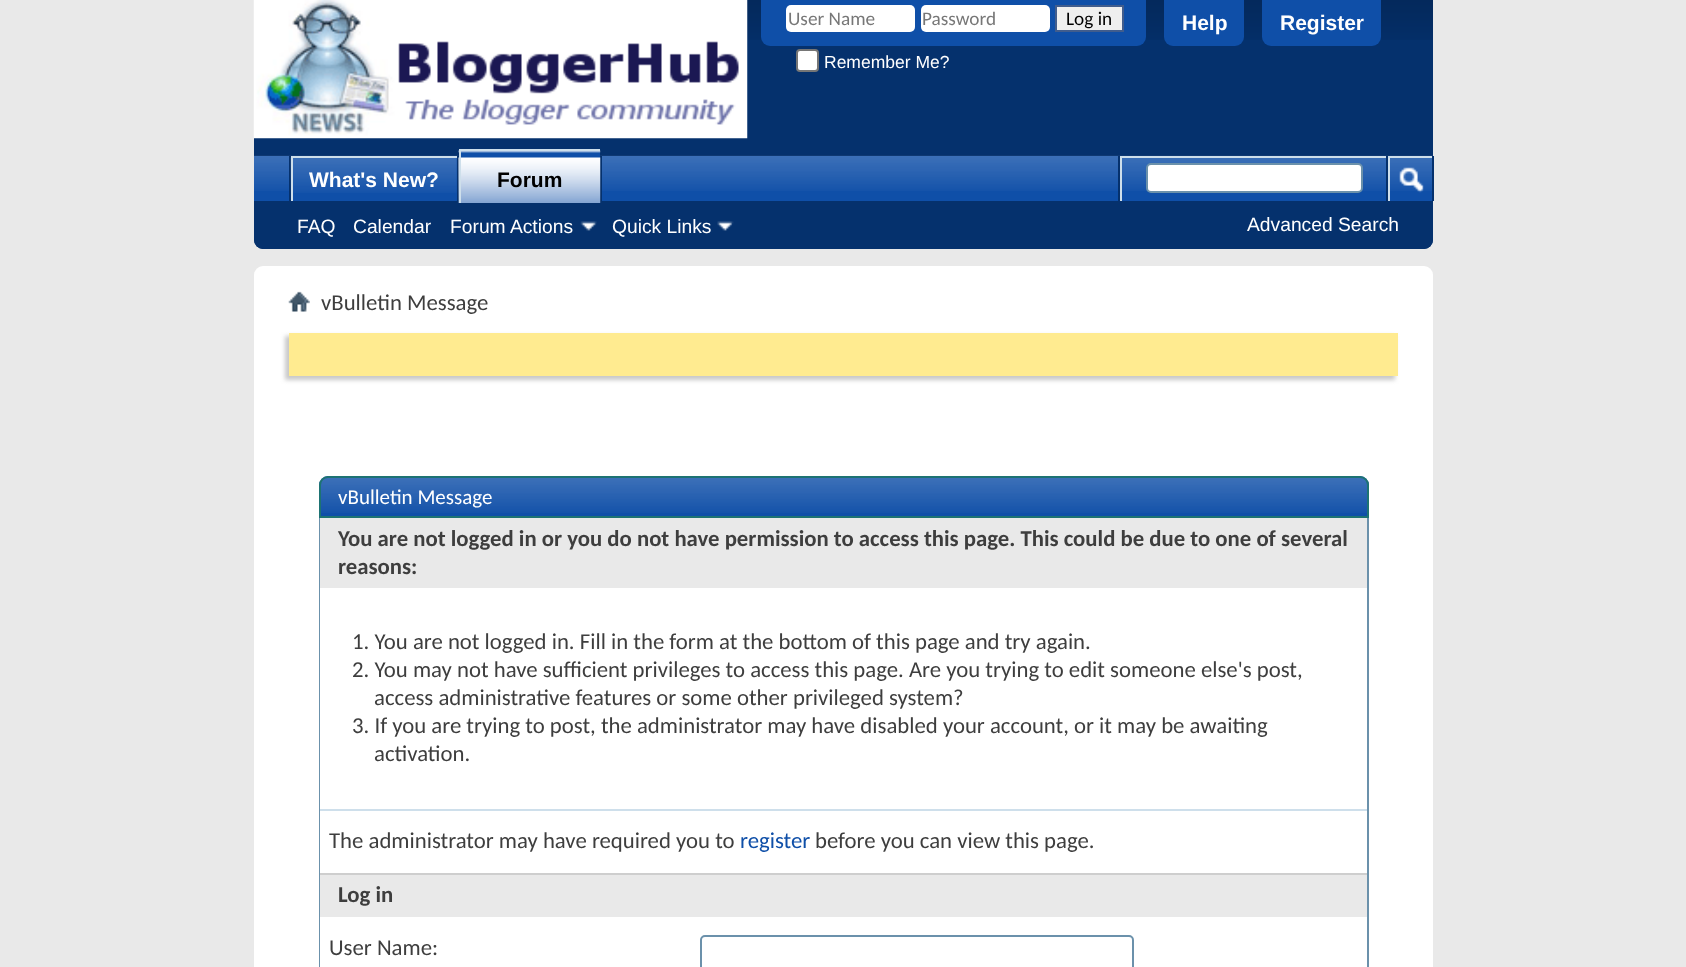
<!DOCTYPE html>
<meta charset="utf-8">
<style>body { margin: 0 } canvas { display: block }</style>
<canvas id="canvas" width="1686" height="967"></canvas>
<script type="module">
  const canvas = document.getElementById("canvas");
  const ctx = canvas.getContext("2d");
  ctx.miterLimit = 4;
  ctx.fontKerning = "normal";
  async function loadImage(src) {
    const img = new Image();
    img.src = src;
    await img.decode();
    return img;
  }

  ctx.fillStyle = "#e9e9e9";
  ctx.fillRect(0, 0, 1686, 967);
  ctx.fillStyle = "#05316d";
  ctx.beginPath();
  ctx.roundRect(254, 0, 1179, 249, [0, 0, 9, 9]);
  ctx.fill();
  ctx.drawImage(await loadImage("img1.png"), 747, 0, 686, 40);
  ctx.drawImage(await loadImage("img2.png"), 253, 0, 495, 139);
  ctx.fillStyle = "#0f4fa8";
  ctx.beginPath();
  ctx.roundRect(761, 0, 385, 46, [0, 0, 9, 9]);
  ctx.fill();
  ctx.fillStyle = "#ffffff";
  ctx.beginPath();
  ctx.roundRect(786, 5, 129, 27, 5);
  ctx.fill();
  ctx.font = "19.25px Carlito";
  ctx.fillStyle = "#777777";
  ctx.fillText("User Name", 788, 25);
  ctx.fillStyle = "#ffffff";
  ctx.beginPath();
  ctx.roundRect(921, 5, 129, 27, 5);
  ctx.fill();
  ctx.fillStyle = "#777777";
  ctx.fillText("Password", 922, 25);
  ctx.fillStyle = "#efefef";
  ctx.beginPath();
  ctx.rect(1056, 6, 67, 25);
  ctx.fill();
  ctx.strokeStyle = "#415d8d";
  ctx.lineWidth = 2;
  ctx.stroke();
  ctx.fillStyle = "#000000";
  ctx.fillText("Log in", 1066, 25);
  ctx.fillStyle = "#ffffff";
  ctx.beginPath();
  ctx.roundRect(797, 50, 21, 21, 3);
  ctx.fill();
  ctx.strokeStyle = "#767676";
  ctx.stroke();
  ctx.font = "17.5px Liberation Sans";
  ctx.fillText("Remember Me?", 824, 68);
  ctx.fillStyle = "#0f4fa8";
  ctx.beginPath();
  ctx.roundRect(1164, 0, 80, 46, [0, 0, 9, 9]);
  ctx.fill();
  ctx.font = "bold 21px Liberation Sans";
  ctx.fillStyle = "#ffffff";
  ctx.fillText("Help", 1182, 30);
  ctx.fillStyle = "#0f4fa8";
  ctx.beginPath();
  ctx.roundRect(1262, 0, 119, 46, [0, 0, 9, 9]);
  ctx.fill();
  ctx.fillStyle = "#ffffff";
  ctx.fillText("Register", 1280, 30);
  ctx.fillStyle = "#05316d";
  ctx.beginPath();
  ctx.roundRect(254, 156, 1179, 93, [0, 0, 9, 9]);
  ctx.fill();
  ctx.fillStyle = "#0f4fa8";
  ctx.fillRect(254, 156, 1178, 45);
  ctx.drawImage(await loadImage("img3.png"), 254, 155, 1179, 36);
  ctx.fillStyle = "#05316d";
  ctx.fillRect(457, 156, 2, 47);
  ctx.fillRect(289, 156, 2, 47);
  ctx.fillStyle = "#0f4fa8";
  ctx.fillRect(293, 158, 164, 33);
  ctx.drawImage(await loadImage("img4.png"), 290, 157, 167, 36);
  ctx.fillStyle = "#cedfeb";
  ctx.fillRect(291, 156, 166, 2);
  ctx.fillRect(291, 156, 2, 47);
  ctx.fillStyle = "#ffffff";
  ctx.fillText("What's New?", 309, 187);
  ctx.fillStyle = "#05316d";
  ctx.fillRect(600, 156, 2, 45);
  ctx.fillStyle = "#0f4fa8";
  ctx.fillRect(461, 151, 139, 52);
  ctx.drawImage(await loadImage("img5.png"), 458, 150, 143, 53);
  ctx.fillStyle = "#cedfeb";
  ctx.fillRect(459, 149, 141, 2);
  ctx.fillRect(459, 149, 2, 54);
  ctx.fillStyle = "#000000";
  ctx.fillText("Forum", 497, 187);
  ctx.fillStyle = "#05316d";
  ctx.fillRect(291, 201, 2, 2);
  ctx.font = "19.25px Liberation Sans";
  ctx.fillStyle = "#ffffff";
  ctx.fillText("FAQ", 297, 233);
  ctx.fillText("Calendar", 353, 233);
  ctx.fillText("Forum Actions", 450, 233);
  ctx.drawImage(await loadImage("img6.png"), 580, 221, 17, 10);
  ctx.fillText("Quick Links", 612, 233);
  ctx.drawImage(await loadImage("img7.png"), 717, 221, 17, 10);
  ctx.fillStyle = "#05316d";
  ctx.fillRect(1118, 156, 2, 45);
  ctx.fillStyle = "#cedfeb";
  ctx.fillRect(1120, 156, 266, 2);
  ctx.fillRect(1120, 156, 2, 45);
  ctx.fillStyle = "#ffffff";
  ctx.beginPath();
  ctx.roundRect(1147, 164, 215, 28, 4);
  ctx.fill();
  ctx.strokeStyle = "#6b91ab";
  ctx.stroke();
  ctx.fillStyle = "#05316d";
  ctx.fillRect(1432, 156, 2, 45);
  ctx.fillRect(1386, 156, 2, 45);
  ctx.fillStyle = "#cedfeb";
  ctx.fillRect(1388, 156, 44, 2);
  ctx.fillRect(1388, 156, 2, 45);
  ctx.drawImage(await loadImage("img8.png"), 1399, 167, 25, 26);
  ctx.fillStyle = "#ffffff";
  ctx.fillText("Advanced Search", 1247, 231);
  ctx.beginPath();
  ctx.roundRect(254, 266, 1179, 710, 9);
  ctx.fill();
  ctx.drawImage(await loadImage("img9.png"), 288, 291, 22, 21);
  ctx.font = "22.75px Carlito";
  ctx.fillStyle = "#3e3e3e";
  ctx.fillText("vBulletin Message", 321, 310);
  ctx.fillStyle = "#c8c8c8";
  ctx.filter = "blur(2px)";
  ctx.beginPath();
  ctx.rect(285, 336, 1110, 44);
  ctx.fill();
  ctx.filter = "none";
  ctx.fillStyle = "#ffeb90";
  ctx.fillRect(289, 333, 1109, 43);
  ctx.fillStyle = "#0f4fa8";
  ctx.beginPath();
  ctx.roundRect(319, 476, 1050, 42, [9, 9, 0, 0]);
  ctx.fill();
  ctx.drawImage(await loadImage("img10.png"), 319, 477, 1050, 36);
  ctx.beginPath();
  ctx.roundRect(320, 477, 1048, 40, [8, 8, 0, 0]);
  ctx.strokeStyle = "#1d7373";
  ctx.stroke();
  ctx.font = "21px Carlito";
  ctx.fillStyle = "#ffffff";
  ctx.fillText("vBulletin Message", 338, 504);
  ctx.fillStyle = "#6b91ab";
  ctx.fillRect(1367, 518, 2, 449);
  ctx.fillRect(319, 518, 1, 449);
  ctx.fillStyle = "#e9e9e9";
  ctx.fillRect(320, 518, 1047, 70);
  ctx.font = "bold 22.75px Carlito";
  ctx.fillStyle = "#3e3e3e";
  ctx.fillText("You are not logged in or you do not have permission to access this page. This could be due to one of several", 338, 546);
  ctx.fillText("reasons:", 338, 574);
  ctx.font = "22.75px Carlito";
  ctx.fillText("1. You are not logged in. Fill in the form at the bottom of this page and try again.", 352, 649);
  ctx.fillText("2. You may not have sufficient privileges to access this page. Are you trying to edit someone else's post,", 352, 677);
  ctx.fillText("access administrative features or some other privileged system?", 374, 705);
  ctx.fillText("3. If you are trying to post, the administrator may have disabled your account, or it may be awaiting", 352, 733);
  ctx.fillText("activation.", 374, 761);
  ctx.fillStyle = "#cedfeb";
  ctx.fillRect(320, 809, 1047, 2);
  ctx.fillStyle = "#3e3e3e";
  ctx.fillText("The administrator may have required you to", 329, 848);
  ctx.fillStyle = "#0f4fa8";
  ctx.fillText("register", 740, 848);
  ctx.fillStyle = "#3e3e3e";
  ctx.fillText("before you can view this page.", 815, 848);
  ctx.fillStyle = "#e9e9e9";
  ctx.fillRect(320, 875, 1047, 42);
  ctx.fillStyle = "#cecece";
  ctx.fillRect(320, 873, 1047, 2);
  ctx.font = "bold 22.75px Carlito";
  ctx.fillStyle = "#3e3e3e";
  ctx.fillText("Log in", 338, 902);
  ctx.font = "22.75px Carlito";
  ctx.fillText("User Name:", 329, 955);
  ctx.beginPath();
  ctx.roundRect(701, 936, 432, 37, 4);
  ctx.strokeStyle = "#6b91ab";
  ctx.stroke();
</script>
